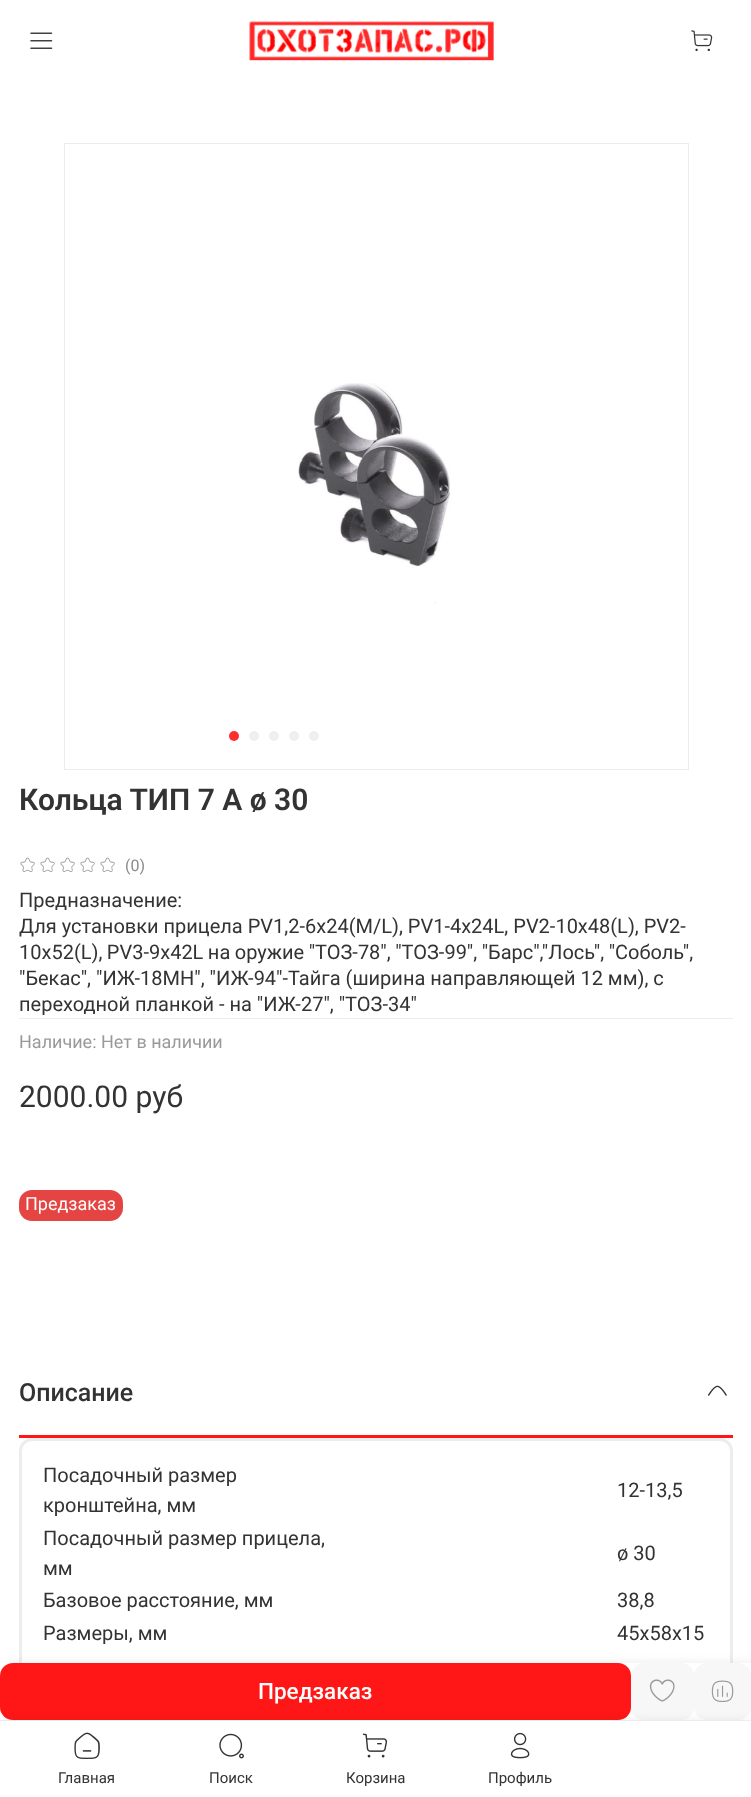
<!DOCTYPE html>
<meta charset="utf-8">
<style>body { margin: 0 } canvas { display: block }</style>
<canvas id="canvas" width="751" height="1797"></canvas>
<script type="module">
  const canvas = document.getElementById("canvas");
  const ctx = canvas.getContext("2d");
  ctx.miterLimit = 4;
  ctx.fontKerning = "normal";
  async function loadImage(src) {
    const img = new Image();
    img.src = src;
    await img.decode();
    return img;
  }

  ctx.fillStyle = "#ffffff";
  ctx.fillRect(0, 0, 751, 1797);
  ctx.drawImage(await loadImage("img1.png"), 30, 32, 23, 17);
  ctx.drawImage(await loadImage("img2.png"), 249, 21, 245, 40);
  ctx.drawImage(await loadImage("img3.png"), 691, 30, 22, 22);
  ctx.strokeStyle = "#ededed";
  ctx.strokeRect(64.5, 143.5, 624, 626);
  ctx.drawImage(await loadImage("img4.png"), 298, 383, 153, 221);
  ctx.fillStyle = "#ff2e2e";
  ctx.beginPath();
  ctx.arc(234, 736, 5, 0, Math.PI * 2);
  ctx.fill();
  ctx.fillStyle = "#efefef";
  ctx.beginPath();
  ctx.arc(254, 736, 5, 0, Math.PI * 2);
  ctx.fill();
  ctx.beginPath();
  ctx.arc(274, 736, 5, 0, Math.PI * 2);
  ctx.fill();
  ctx.beginPath();
  ctx.arc(294, 736, 5, 0, Math.PI * 2);
  ctx.fill();
  ctx.beginPath();
  ctx.arc(314, 736, 5, 0, Math.PI * 2);
  ctx.fill();
  ctx.font = "600 30px Roboto";
  ctx.fillStyle = "#333333";
  ctx.fillText("Кольца ТИП 7 А ø 30", 19, 810);
  ctx.drawImage(await loadImage("img5.png"), 20, 857, 15, 15);
  ctx.drawImage(await loadImage("img5.png"), 40, 857, 15, 15);
  ctx.drawImage(await loadImage("img5.png"), 60, 857, 15, 15);
  ctx.drawImage(await loadImage("img5.png"), 80, 857, 15, 15);
  ctx.drawImage(await loadImage("img5.png"), 100, 857, 15, 15);
  ctx.font = "16px Roboto";
  ctx.fillStyle = "#8b8b8b";
  ctx.fillText("(0)", 125, 871);
  ctx.fillStyle = "#ededed";
  ctx.fillRect(19, 1018, 714, 1);
  ctx.font = "20px Roboto";
  ctx.fillStyle = "#333333";
  ctx.fillText("Предназначение:", 19, 907);
  ctx.fillText("Для установки прицела PV1,2-6x24(М/L), PV1-4x24L, PV2-10x48(L), PV2-", 19, 933);
  ctx.wordSpacing = "-0.5px";
  ctx.fillText("10x52(L), PV3-9x42L на оружие \"ТОЗ-78\", \"ТОЗ-99\", \"Барс\",\"Лось\", \"Соболь\",", 19, 959);
  ctx.wordSpacing = "0px";
  ctx.fillText("\"Бекас\", \"ИЖ-18МН\", \"ИЖ-94\"-Тайга (ширина направляющей 12 мм), с", 19, 985);
  ctx.fillText("переходной планкой - на \"ИЖ-27\", \"ТОЗ-34\"", 19, 1011);
  ctx.font = "18px Roboto";
  ctx.fillStyle = "#999999";
  ctx.fillText("Наличие:", 19, 1048);
  ctx.fillText("Нет в наличии", 101, 1048);
  ctx.font = "30px Roboto";
  ctx.fillStyle = "#333333";
  ctx.fillText("2000.00 руб", 19, 1107);
  ctx.fillStyle = "#e44542";
  ctx.beginPath();
  ctx.roundRect(19, 1190, 104, 31, 13);
  ctx.fill();
  ctx.font = "18px Roboto";
  ctx.fillStyle = "#ffffff";
  ctx.fillText("Предзаказ", 25, 1210);
  ctx.beginPath();
  ctx.roundRect(20.5, 1439.5, 711, 264, 11.5);
  ctx.lineWidth = 3;
  ctx.stroke();
  ctx.fillStyle = "rgba(0, 0, 0, 0.08)";
  ctx.filter = "blur(6px)";
  ctx.beginPath();
  ctx.rect(5, 1663, 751, 57);
  ctx.fill();
  ctx.filter = "none";
  ctx.fillStyle = "#ffffff";
  ctx.fillRect(0, 1663, 751, 57);
  ctx.fillStyle = "#ff1717";
  ctx.beginPath();
  ctx.roundRect(0, 1663, 631, 57, 13);
  ctx.fill();
  ctx.font = "500 22.5px Roboto";
  ctx.fillStyle = "#ffffff";
  ctx.fillText("Предзаказ", 258, 1699);
  ctx.fillStyle = "#f7f7f7";
  ctx.beginPath();
  ctx.roundRect(631, 1663, 63, 57, 13);
  ctx.fill();
  ctx.drawImage(await loadImage("img6.png"), 649, 1679, 26, 23);
  ctx.beginPath();
  ctx.roundRect(694, 1663, 57, 57, 13);
  ctx.fill();
  ctx.drawImage(await loadImage("img7.png"), 711, 1680, 23, 22);
  ctx.fillStyle = "#ff1717";
  ctx.fillRect(19, 1435, 714, 3);
  ctx.font = "500 25px Roboto";
  ctx.fillStyle = "#333333";
  ctx.fillText("Описание", 19, 1401);
  ctx.drawImage(await loadImage("img8.png"), 708, 1385, 19, 11);
  ctx.font = "20px Roboto";
  ctx.fillText("Посадочный размер", 43, 1482);
  ctx.fillText("кронштейна, мм", 43, 1512);
  ctx.fillText("12-13,5", 617, 1497);
  ctx.fillText("Посадочный размер прицела,", 43, 1545);
  ctx.fillText("мм", 43, 1575);
  ctx.fillText("ø 30", 617, 1560);
  ctx.fillText("Базовое расстояние, мм", 43, 1607);
  ctx.fillText("38,8", 617, 1607);
  ctx.fillText("Размеры, мм", 43, 1640);
  ctx.fillText("45х58х15", 617, 1640);
  ctx.fillStyle = "rgba(0, 0, 0, 0.12)";
  ctx.filter = "blur(6px)";
  ctx.beginPath();
  ctx.rect(0, 1723, 751, 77);
  ctx.fill();
  ctx.filter = "none";
  ctx.fillStyle = "#ffffff";
  ctx.fillRect(0, 1721, 751, 76);
  ctx.fillStyle = "#ededed";
  ctx.fillRect(0, 1720, 751, 1);
  ctx.drawImage(await loadImage("img9.png"), 74, 1732, 26, 27);
  ctx.font = "15px Roboto";
  ctx.fillStyle = "#333333";
  ctx.fillText("Главная", 58, 1783);
  ctx.drawImage(await loadImage("img10.png"), 219, 1733, 25, 26);
  ctx.fillText("Поиск", 209, 1783);
  ctx.drawImage(await loadImage("img11.png"), 362, 1733, 26, 25);
  ctx.fillText("Корзина", 346, 1783);
  ctx.drawImage(await loadImage("img12.png"), 510, 1732, 20, 27);
  ctx.fillText("Профиль", 488, 1783);
</script>
